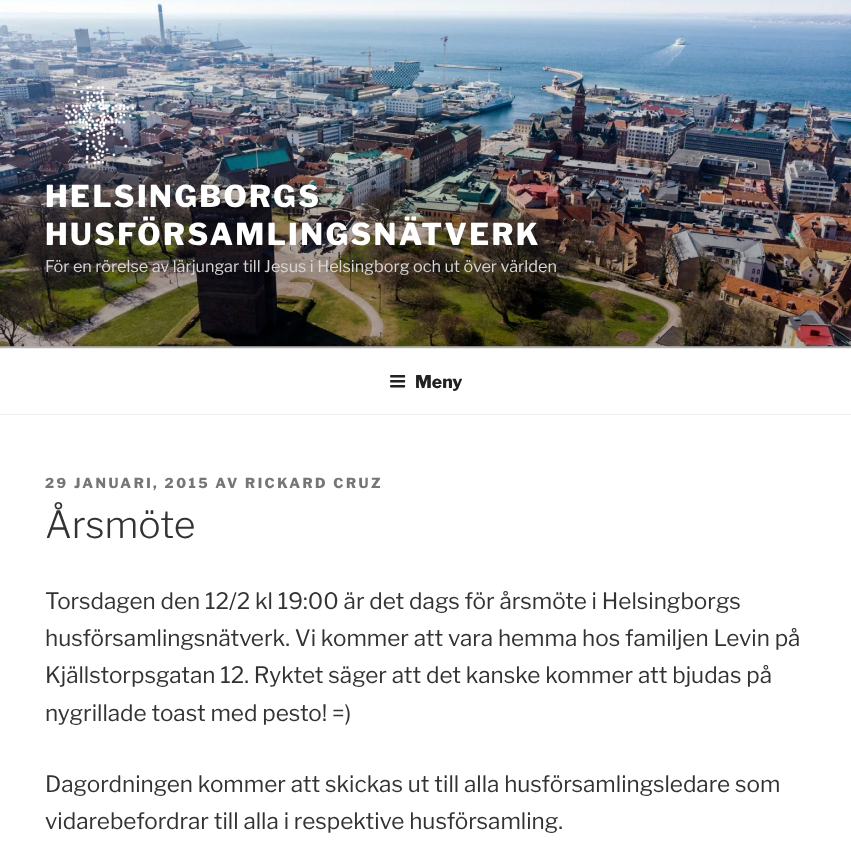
<!DOCTYPE html>
<meta charset="utf-8">
<style>body { margin: 0 } canvas { display: block }</style>
<canvas id="canvas" width="851" height="850"></canvas>
<script type="module">
  const canvas = document.getElementById("canvas");
  const ctx = canvas.getContext("2d");
  ctx.miterLimit = 4;
  ctx.fontKerning = "normal";
  async function loadImage(src) {
    const img = new Image();
    img.src = src;
    await img.decode();
    return img;
  }
  let gradient;

  ctx.fillStyle = "#ffffff";
  ctx.fillRect(0, 0, 851, 850);
  ctx.fillStyle = "#fafafa";
  ctx.fillRect(0, 346, 851, 2);
  ctx.drawImage(await loadImage("img1.png"), 0, 0, 851, 347);
  gradient = ctx.createLinearGradient(426, 0, 426, 348);
  gradient.addColorStop(0, "rgba(0, 0, 0, 0)");
  gradient.addColorStop(0.75, "rgba(0, 0, 0, 0.3)");
  gradient.addColorStop(1, "rgba(0, 0, 0, 0.3)");
  ctx.fillStyle = gradient;
  ctx.fillRect(0, 19, 851, 329);
  ctx.drawImage(await loadImage("img2.png"), 65, 79, 70, 86);
  ctx.letterSpacing = "2.4px";
  ctx.font = "100 30px Libre Franklin";
  ctx.fillStyle = "#ffffff";
  ctx.fillText("HELSINGBORGS", 45, 207);
  ctx.fillText("HUSFÖRSAMLINGSNÄTVERK", 45, 245);
  ctx.letterSpacing = "0px";
  ctx.font = "100 16.25px 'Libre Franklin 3'";
  ctx.fillStyle = "#d8d7d5";
  ctx.fillText("För en rörelse av lärjungar till Jesus i Helsingborg och ut över världen", 45, 272);
  ctx.fillStyle = "#eeeeee";
  ctx.fillRect(0, 348, 851, 1);
  ctx.fillRect(0, 414, 851, 1);
  ctx.drawImage(await loadImage("img3.png"), 390, 375, 16, 13);
  ctx.font = "100 17.5px Libre Franklin";
  ctx.fillStyle = "#222222";
  ctx.fillText("Meny", 415, 388);
  ctx.letterSpacing = "2.5px";
  ctx.font = "100 13.75px Libre Franklin";
  ctx.fillStyle = "#767676";
  ctx.fillText("29 JANUARI, 2015 AV RICKARD CRUZ", 45, 488);
  ctx.letterSpacing = "0px";
  ctx.font = "100 37.5px 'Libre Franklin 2'";
  ctx.fillStyle = "#333333";
  ctx.fillText("Årsmöte", 45, 538);
  ctx.font = "100 22.5px 'Libre Franklin 3'";
  ctx.fillText("Torsdagen den 12/2 kl 19:00 är det dags för årsmöte i Helsingborgs", 45, 609);
  ctx.fillText("husförsamlingsnätverk. Vi kommer att vara hemma hos familjen Levin på", 45, 646);
  ctx.fillText("Kjällstorpsgatan 12. Ryktet säger att det kanske kommer att bjudas på", 45, 683);
  ctx.fillText("nygrillade toast med pesto! =)", 45, 721);
  ctx.fillText("Dagordningen kommer att skickas ut till alla husförsamlingsledare som", 45, 792);
  ctx.fillText("vidarebefordrar till alla i respektive husförsamling.", 45, 829);
</script>
